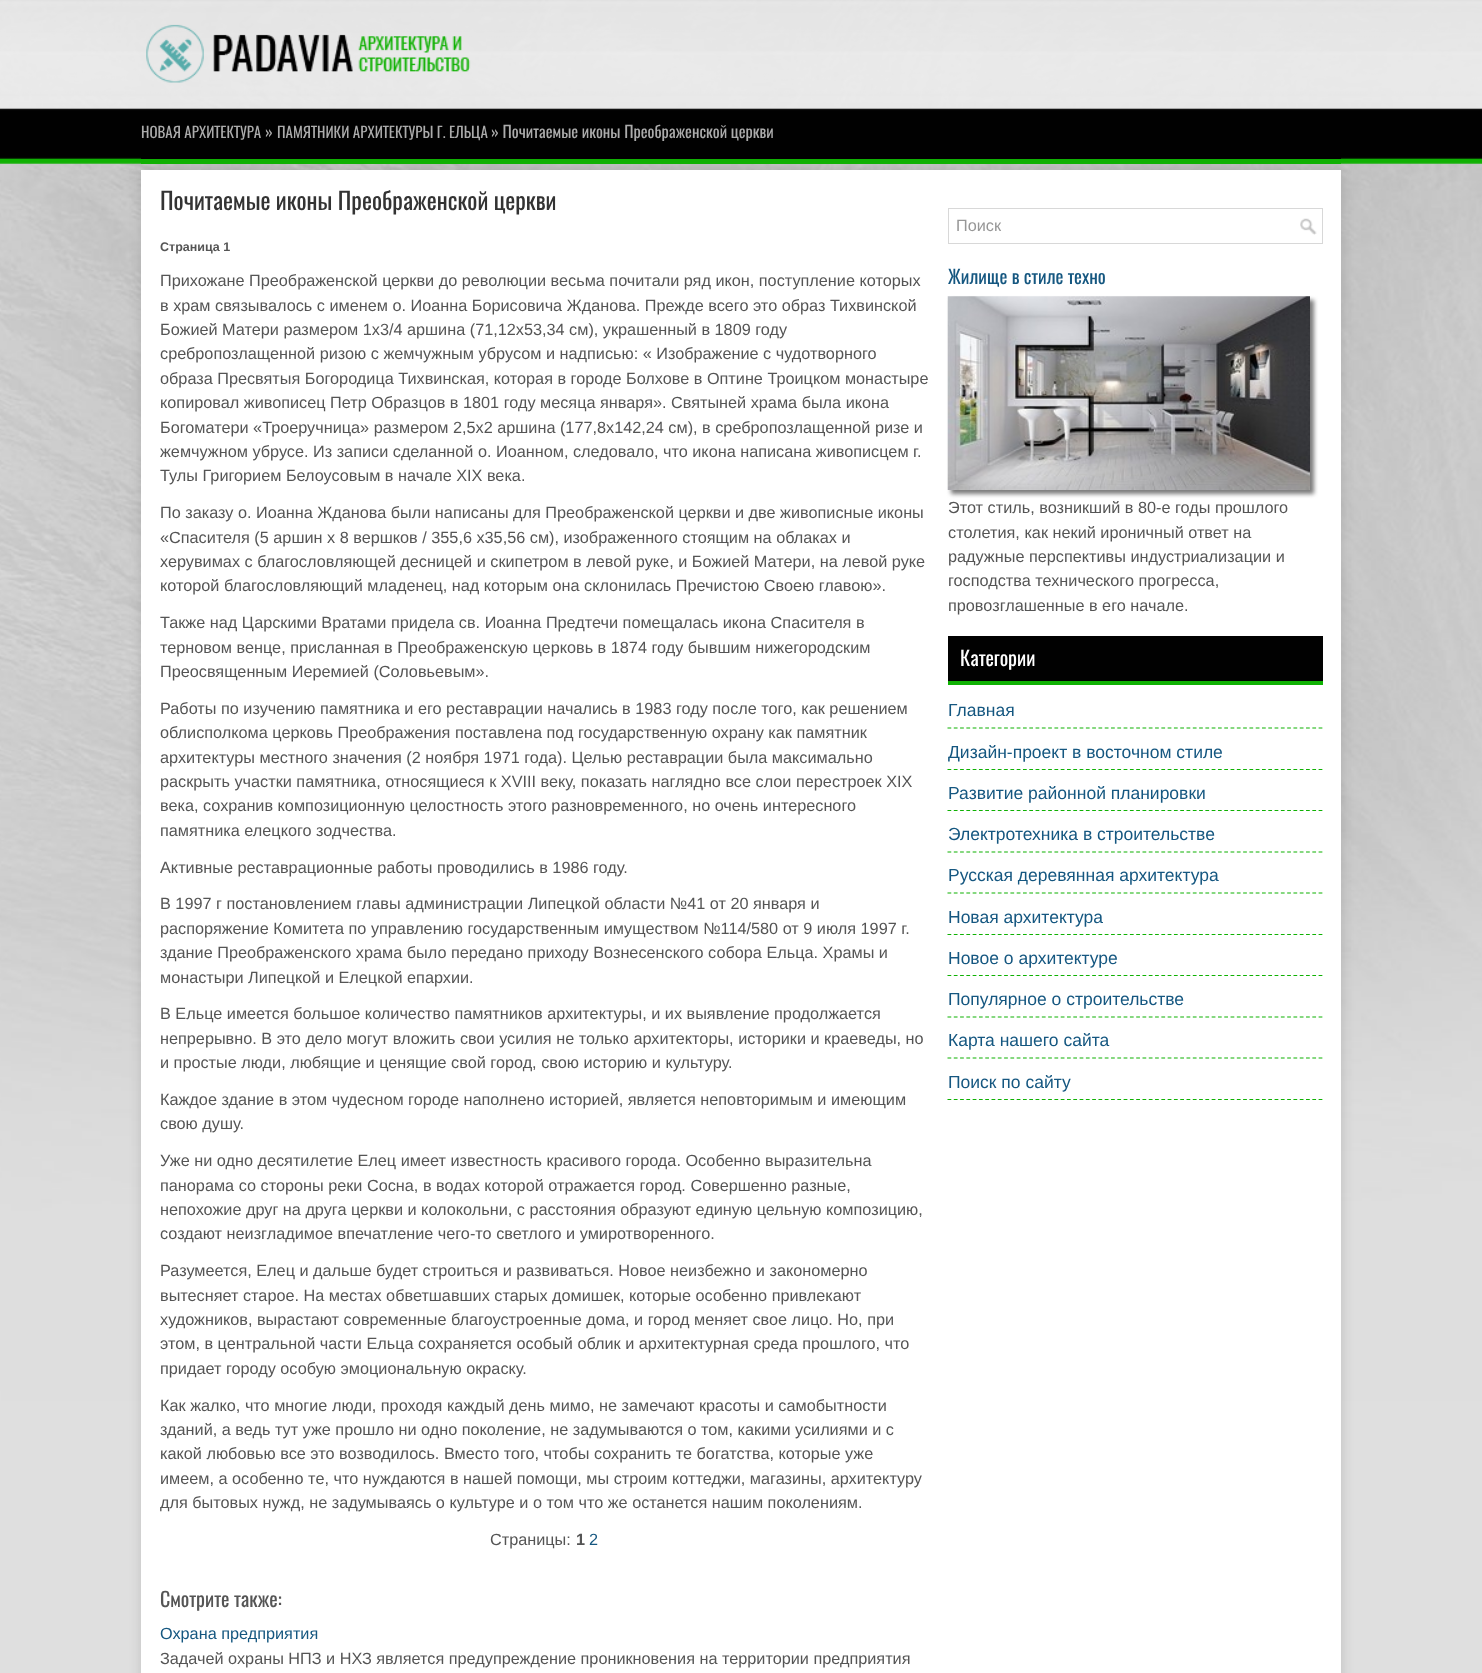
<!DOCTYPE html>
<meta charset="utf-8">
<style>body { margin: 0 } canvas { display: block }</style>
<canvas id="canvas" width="1482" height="1673"></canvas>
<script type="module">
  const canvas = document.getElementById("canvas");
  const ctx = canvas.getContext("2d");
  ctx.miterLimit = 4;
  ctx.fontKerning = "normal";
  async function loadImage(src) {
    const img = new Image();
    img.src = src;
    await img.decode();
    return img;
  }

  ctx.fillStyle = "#ffffff";
  ctx.fillRect(0, 0, 1482, 1673);
  ctx.drawImage(await loadImage("img1.png"), 0, 0, 1482, 1673);
  ctx.drawImage(await loadImage("img2.png"), 146, 24, 325, 59);
  ctx.fillStyle = "rgba(96, 96, 96, 0.2)";
  ctx.filter = "blur(5.5px)";
  ctx.beginPath();
  ctx.rect(140, 169, 1203, 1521);
  ctx.fill();
  ctx.filter = "none";
  ctx.fillStyle = "#010101";
  ctx.fillRect(141, 157, 1200, 2);
  ctx.fillStyle = "#10b103";
  ctx.fillRect(141, 162, 1200, 2);
  ctx.font = "15px Oswald";
  ctx.fillStyle = "#ababab";
  ctx.fillText("НОВАЯ АРХИТЕКТУРА", 141, 138);
  ctx.font = "16.25px Oswald";
  ctx.fillText("»", 265, 138);
  ctx.font = "15px Oswald";
  ctx.fillText("ПАМЯТНИКИ АРХИТЕКТУРЫ Г. ЕЛЬЦА", 277, 138);
  ctx.font = "16.25px Oswald";
  ctx.fillText("» Почитаемые иконы Преображенской церкви", 491, 138);
  ctx.fillStyle = "#ffffff";
  ctx.fillRect(141, 170, 1200, 1503);
  ctx.font = "23.75px Oswald";
  ctx.fillStyle = "#333333";
  ctx.fillText("Почитаемые иконы Преображенской церкви", 160, 210);
  ctx.font = "bold 12.5px Liberation Sans";
  ctx.fillStyle = "#555555";
  ctx.fillText("Страница 1", 160, 251);
  ctx.font = "16.25px Liberation Sans";
  ctx.fillText("Прихожане Преображенской церкви до революции весьма почитали ряд икон, поступление которых", 160, 286);
  ctx.fillText("в храм связывалось с именем о. Иоанна Борисовича Жданова. Прежде всего это образ Тихвинской", 160, 311);
  ctx.fillText("Божией Матери размером 1х3/4 аршина (71,12х53,34 см), украшенный в 1809 году", 160, 335);
  ctx.fillText("сребропозлащенной ризою с жемчужным убрусом и надписью: « Изображение с чудотворного", 160, 359);
  ctx.fillText("образа Пресвятыя Богородица Тихвинская, которая в городе Болхове в Оптине Троицком монастыре", 160, 384);
  ctx.fillText("копировал живописец Петр Образцов в 1801 году месяца января». Святыней храма была икона", 160, 408);
  ctx.fillText("Богоматери «Троеручница» размером 2,5х2 аршина (177,8х142,24 см), в сребропозлащенной ризе и", 160, 433);
  ctx.fillText("жемчужном убрусе. Из записи сделанной о. Иоанном, следовало, что икона написана живописцем г.", 160, 457);
  ctx.fillText("Тулы Григорием Белоусовым в начале XIX века.", 160, 481);
  ctx.fillText("По заказу о. Иоанна Жданова были написаны для Преображенской церкви и две живописные иконы", 160, 518);
  ctx.fillText("«Спасителя (5 аршин х 8 вершков / 355,6 х35,56 см), изображенного стоящим на облаках и", 160, 543);
  ctx.fillText("херувимах с благословляющей десницей и скипетром в левой руке, и Божией Матери, на левой руке", 160, 567);
  ctx.fillText("которой благословляющий младенец, над которым она склонилась Пречистою Своею главою».", 160, 591);
  ctx.fillText("Также над Царскими Вратами придела св. Иоанна Предтечи помещалась икона Спасителя в", 160, 628);
  ctx.fillText("терновом венце, присланная в Преображенскую церковь в 1874 году бывшим нижегородским", 160, 653);
  ctx.fillText("Преосвященным Иеремией (Соловьевым».", 160, 677);
  ctx.fillText("Работы по изучению памятника и его реставрации начались в 1983 году после того, как решением", 160, 714);
  ctx.fillText("облисполкома церковь Преображения поставлена под государственную охрану как памятник", 160, 738);
  ctx.fillText("архитектуры местного значения (2 ноября 1971 года). Целью реставрации была максимально", 160, 763);
  ctx.fillText("раскрыть участки памятника, относящиеся к XVIII веку, показать наглядно все слои перестроек XIX", 160, 787);
  ctx.fillText("века, сохранив композиционную целостность этого разновременного, но очень интересного", 160, 811);
  ctx.fillText("памятника елецкого зодчества.", 160, 836);
  ctx.fillText("Активные реставрационные работы проводились в 1986 году.", 160, 873);
  ctx.fillText("В 1997 г постановлением главы администрации Липецкой области №41 от 20 января и", 160, 909);
  ctx.fillText("распоряжение Комитета по управлению государственным имуществом №114/580 от 9 июля 1997 г.", 160, 934);
  ctx.fillText("здание Преображенского храма было передано приходу Вознесенского собора Ельца. Храмы и", 160, 958);
  ctx.fillText("монастыри Липецкой и Елецкой епархии.", 160, 983);
  ctx.fillText("В Ельце имеется большое количество памятников архитектуры, и их выявление продолжается", 160, 1019);
  ctx.fillText("непрерывно. В это дело могут вложить свои усилия не только архитекторы, историки и краеведы, но", 160, 1044);
  ctx.fillText("и простые люди, любящие и ценящие свой город, свою историю и культуру.", 160, 1068);
  ctx.fillText("Каждое здание в этом чудесном городе наполнено историей, является неповторимым и имеющим", 160, 1105);
  ctx.fillText("свою душу.", 160, 1129);
  ctx.fillText("Уже ни одно десятилетие Елец имеет известность красивого города. Особенно выразительна", 160, 1166);
  ctx.fillText("панорама со стороны реки Сосна, в водах которой отражается город. Совершенно разные,", 160, 1191);
  ctx.fillText("непохожие друг на друга церкви и колокольни, с расстояния образуют единую цельную композицию,", 160, 1215);
  ctx.fillText("создают неизгладимое впечатление чего-то светлого и умиротворенного.", 160, 1239);
  ctx.fillText("Разумеется, Елец и дальше будет строиться и развиваться. Новое неизбежно и закономерно", 160, 1276);
  ctx.fillText("вытесняет старое. На местах обветшавших старых домишек, которые особенно привлекают", 160, 1301);
  ctx.fillText("художников, вырастают современные благоустроенные дома, и город меняет свое лицо. Но, при", 160, 1325);
  ctx.fillText("этом, в центральной части Ельца сохраняется особый облик и архитектурная среда прошлого, что", 160, 1349);
  ctx.fillText("придает городу особую эмоциональную окраску.", 160, 1374);
  ctx.fillText("Как жалко, что многие люди, проходя каждый день мимо, не замечают красоты и самобытности", 160, 1411);
  ctx.fillText("зданий, а ведь тут уже прошло ни одно поколение, не задумываются о том, какими усилиями и с", 160, 1435);
  ctx.fillText("какой любовью все это возводилось. Вместо того, чтобы сохранить те богатства, которые уже", 160, 1459);
  ctx.fillText("имеем, а особенно те, что нуждаются в нашей помощи, мы строим коттеджи, магазины, архитектуру", 160, 1484);
  ctx.fillText("для бытовых нужд, не задумываясь о культуре и о том что же останется нашим поколениям.", 160, 1508);
  ctx.fillText("Страницы:", 490, 1545);
  ctx.font = "bold 16.25px Liberation Sans";
  ctx.fillText("1", 576, 1545);
  ctx.font = "16.25px Liberation Sans";
  ctx.fillStyle = "#155780";
  ctx.fillText("2", 589, 1545);
  ctx.font = "20px Oswald";
  ctx.fillStyle = "#555555";
  ctx.fillText("Смотрите также:", 160, 1607);
  ctx.font = "16.25px Liberation Sans";
  ctx.fillStyle = "#155780";
  ctx.fillText("Охрана предприятия", 160, 1639);
  ctx.fillStyle = "#555555";
  ctx.fillText("Задачей охраны НПЗ и НХЗ является предупреждение проникновения на территории предприятия", 160, 1664);
  ctx.drawImage(await loadImage("img3.png"), 1300, 218, 17, 17);
  ctx.strokeStyle = "#d8d8d8";
  ctx.strokeRect(948.5, 208.5, 374, 35);
  ctx.fillStyle = "#979797";
  ctx.fillText("Поиск", 956, 231);
  ctx.font = "18.75px Oswald";
  ctx.fillStyle = "#155780";
  ctx.fillText("Жилище в стиле техно", 948, 284);
  ctx.fillStyle = "#7c7c7c";
  ctx.filter = "blur(2px)";
  ctx.beginPath();
  ctx.rect(951, 300, 363, 194);
  ctx.fill();
  ctx.filter = "none";
  ctx.drawImage(await loadImage("img4.png"), 947, 296, 363, 194);
  ctx.font = "16.25px Liberation Sans";
  ctx.fillStyle = "#555555";
  ctx.fillText("Этот стиль, возникший в 80-е годы прошлого", 948, 513);
  ctx.fillText("столетия, как некий ироничный ответ на", 948, 538);
  ctx.fillText("радужные перспективы индустриализации и", 948, 562);
  ctx.fillText("господства технического прогресса,", 948, 586);
  ctx.fillText("провозглашенные в его начале.", 948, 611);
  ctx.fillStyle = "#0fb103";
  ctx.beginPath();
  ctx.moveTo(948, 681);
  ctx.lineTo(948, 685);
  ctx.lineTo(1323, 685);
  ctx.lineTo(1323, 640);
  ctx.lineTo(1322, 640);
  ctx.lineTo(1322, 681);
  ctx.closePath();
  ctx.fill();
  ctx.fillStyle = "#010101";
  ctx.fillRect(948, 636, 375, 45);
  ctx.font = "20px Oswald";
  ctx.fillStyle = "#ffffff";
  ctx.fillText("Категории", 960, 666);
  ctx.beginPath();
  ctx.moveTo(947.5, 728);
  ctx.lineTo(1322.5, 728);
  ctx.strokeStyle = "#0fb103";
  ctx.lineWidth = 1.2;
  ctx.setLineDash([3.75, 2.54]);
  ctx.stroke();
  ctx.font = "17.5px Liberation Sans";
  ctx.fillStyle = "#155780";
  ctx.fillText("Главная", 948, 716);
  ctx.beginPath();
  ctx.moveTo(947.5, 769.5);
  ctx.lineTo(1322.5, 769.5);
  ctx.stroke();
  ctx.save();
  ctx.beginPath();
  ctx.rect(948, 189, 375, 1000);
  ctx.clip();
  ctx.fillText("Дизайн-проект в восточном стиле", 948, 758);
  ctx.restore();
  ctx.beginPath();
  ctx.moveTo(947.5, 810.5);
  ctx.lineTo(1322.5, 810.5);
  ctx.stroke();
  ctx.fillText("Развитие районной планировки", 948, 799);
  ctx.beginPath();
  ctx.moveTo(947.5, 852);
  ctx.lineTo(1322.5, 852);
  ctx.stroke();
  ctx.fillText("Электротехника в строительстве", 948, 840);
  ctx.beginPath();
  ctx.moveTo(947.5, 893);
  ctx.lineTo(1322.5, 893);
  ctx.stroke();
  ctx.fillText("Русская деревянная архитектура", 948, 881);
  ctx.beginPath();
  ctx.moveTo(947.5, 934.5);
  ctx.lineTo(1322.5, 934.5);
  ctx.stroke();
  ctx.fillText("Новая архитектура", 948, 923);
  ctx.beginPath();
  ctx.moveTo(947.5, 975.5);
  ctx.lineTo(1322.5, 975.5);
  ctx.stroke();
  ctx.fillText("Новое о архитектуре", 948, 964);
  ctx.beginPath();
  ctx.moveTo(947.5, 1017);
  ctx.lineTo(1322.5, 1017);
  ctx.stroke();
  ctx.fillText("Популярное о строительстве", 948, 1005);
  ctx.beginPath();
  ctx.moveTo(947.5, 1058);
  ctx.lineTo(1322.5, 1058);
  ctx.stroke();
  ctx.fillText("Карта нашего сайта", 948, 1046);
  ctx.beginPath();
  ctx.moveTo(947.5, 1099.5);
  ctx.lineTo(1322.5, 1099.5);
  ctx.stroke();
  ctx.fillText("Поиск по сайту", 948, 1088);
</script>
